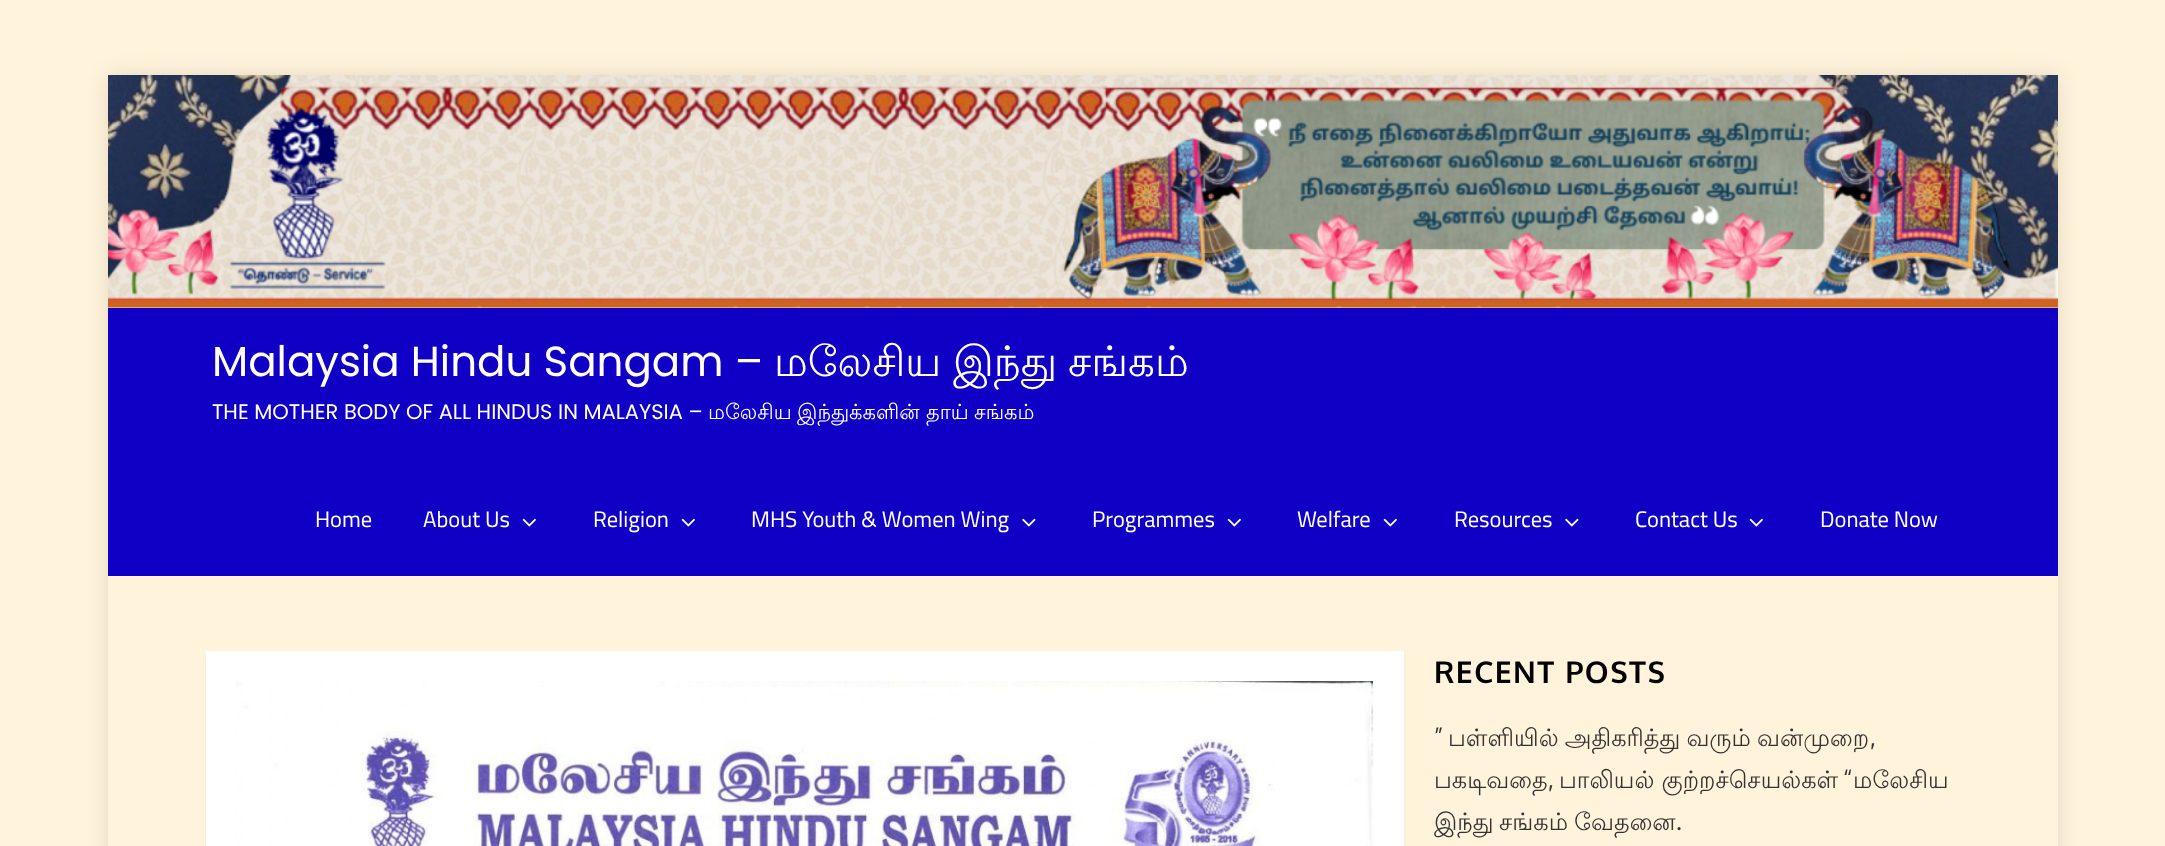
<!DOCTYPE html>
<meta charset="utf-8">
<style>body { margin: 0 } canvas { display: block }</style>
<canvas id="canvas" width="2165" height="846"></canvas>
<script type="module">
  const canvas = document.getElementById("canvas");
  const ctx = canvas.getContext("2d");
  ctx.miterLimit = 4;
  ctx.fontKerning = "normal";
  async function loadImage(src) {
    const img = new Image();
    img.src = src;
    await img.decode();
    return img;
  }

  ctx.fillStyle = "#fff3db";
  ctx.fillRect(0, 0, 2165, 846);
  ctx.save();
  ctx.beginPath();
  ctx.moveTo(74, 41);
  ctx.lineTo(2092, 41);
  ctx.lineTo(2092, 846);
  ctx.lineTo(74, 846);
  ctx.closePath();
  ctx.moveTo(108, 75);
  ctx.lineTo(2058, 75);
  ctx.lineTo(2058, 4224);
  ctx.lineTo(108, 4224);
  ctx.closePath();
  ctx.clip("evenodd");
  ctx.fillStyle = "rgba(0, 0, 0, 0.1)";
  ctx.filter = "blur(11px)";
  ctx.beginPath();
  ctx.rect(108, 75, 1950, 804);
  ctx.fill();
  ctx.filter = "none";
  ctx.restore();
  ctx.drawImage(await loadImage("img1.png"), 108, 75, 1950, 233);
  ctx.fillStyle = "#1000c6";
  ctx.fillRect(108, 308, 1950, 268);
  ctx.font = "42px Poppins";
  ctx.fillStyle = "#ffffff";
  ctx.fillText("Malaysia Hindu Sangam –", 212, 376);
  ctx.font = "42px Lohit Tamil";
  ctx.fillText("மலேசிய", 774, 376);
  ctx.fillText("இந்து", 953, 376);
  ctx.fillText("சங்கம்", 1068, 376);
  ctx.font = "21px Poppins";
  ctx.fillText("THE MOTHER BODY OF ALL HINDUS IN MALAYSIA –", 212, 419);
  ctx.font = "21px Lohit Tamil";
  ctx.fillText("மலேசிய", 708, 419);
  ctx.fillText("இந்துக்களின்", 797, 419);
  ctx.fillText("தாய்", 926, 419);
  ctx.fillText("சங்கம்", 974, 419);
  ctx.font = "22.5px Cairo";
  ctx.fillText("Home", 315, 527);
  ctx.fillText("About Us", 423, 527);
  ctx.drawImage(await loadImage("img2.png"), 522, 518, 14, 9);
  ctx.fillText("Religion", 593, 527);
  ctx.drawImage(await loadImage("img2.png"), 681, 518, 14, 9);
  ctx.fillText("MHS Youth & Women Wing", 751, 527);
  ctx.drawImage(await loadImage("img3.png"), 1022, 518, 14, 9);
  ctx.fillText("Programmes", 1092, 527);
  ctx.drawImage(await loadImage("img2.png"), 1227, 518, 14, 9);
  ctx.fillText("Welfare", 1297, 527);
  ctx.drawImage(await loadImage("img2.png"), 1383, 518, 14, 9);
  ctx.fillText("Resources", 1454, 527);
  ctx.drawImage(await loadImage("img3.png"), 1565, 518, 14, 9);
  ctx.fillText("Contact Us", 1635, 527);
  ctx.drawImage(await loadImage("img2.png"), 1749, 518, 14, 9);
  ctx.fillText("Donate Now", 1820, 527);
  ctx.fillStyle = "rgba(0, 0, 0, 0.06)";
  ctx.filter = "blur(1.5px)";
  ctx.beginPath();
  ctx.rect(206, 654, 1198, 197);
  ctx.fill();
  ctx.filter = "none";
  ctx.fillStyle = "#ffffff";
  ctx.fillRect(206, 651, 1198, 195);
  ctx.drawImage(await loadImage("img4.png"), 235, 681, 1139, 165);
  ctx.letterSpacing = "1.5px";
  ctx.font = "bold 30px Oxygen";
  ctx.fillStyle = "#000000";
  ctx.fillText("RECENT POSTS", 1434, 683);
  ctx.letterSpacing = "0px";
  ctx.font = "24px Oxygen";
  ctx.fillStyle = "#333333";
  ctx.fillText("”", 1434, 746);
  ctx.wordSpacing = "-1px";
  ctx.font = "24px Lohit Tamil";
  ctx.fillText("பள்ளியில் அதிகரித்து வரும் வன்முறை", 1448, 746);
  ctx.wordSpacing = "0px";
  ctx.font = "24px Oxygen";
  ctx.fillText(",", 1870, 746);
  ctx.font = "24px Lohit Tamil";
  ctx.fillText("பகடிவதை", 1434, 788);
  ctx.font = "24px Oxygen";
  ctx.fillText(",", 1548, 788);
  ctx.font = "24px Lohit Tamil";
  ctx.fillText("பாலியல் குற்றச்செயல்கள்", 1559, 788);
  ctx.font = "24px Oxygen";
  ctx.fillText("“", 1843, 788);
  ctx.font = "24px Lohit Tamil";
  ctx.fillText("மலேசிய", 1853, 788);
  ctx.fillText("இந்து", 1434, 830);
  ctx.fillText("சங்கம்", 1499, 830);
  ctx.fillText("வேதனை", 1574, 830);
  ctx.font = "24px Oxygen";
  ctx.fillText(".", 1676, 830);
</script>
